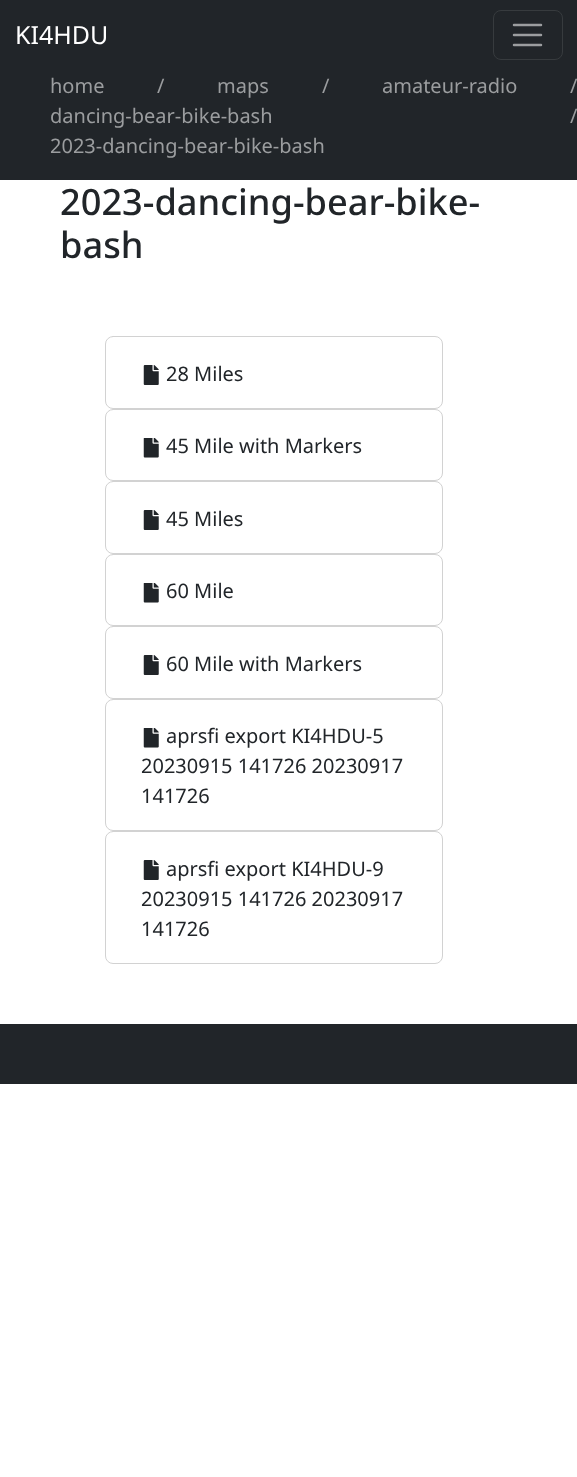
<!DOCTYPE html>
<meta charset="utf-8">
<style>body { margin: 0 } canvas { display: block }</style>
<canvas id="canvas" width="577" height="1477"></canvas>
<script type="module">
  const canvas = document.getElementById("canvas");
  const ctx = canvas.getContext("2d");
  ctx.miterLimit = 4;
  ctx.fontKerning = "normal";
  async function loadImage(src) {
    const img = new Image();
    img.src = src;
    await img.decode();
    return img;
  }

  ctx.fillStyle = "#ffffff";
  ctx.fillRect(0, 0, 577, 1477);
  ctx.fillStyle = "#212529";
  ctx.fillRect(0, 0, 577, 180);
  ctx.font = "25px Noto Sans";
  ctx.fillStyle = "#ffffff";
  ctx.fillText("KI4HDU", 15, 44);
  ctx.beginPath();
  ctx.roundRect(493.5, 10.5, 69, 49, 7.5);
  ctx.strokeStyle = "#373b3e";
  ctx.stroke();
  ctx.beginPath();
  ctx.moveTo(514, 25);
  ctx.lineTo(541, 25);
  ctx.moveTo(514, 35);
  ctx.lineTo(541, 35);
  ctx.moveTo(514, 45);
  ctx.lineTo(541, 45);
  ctx.strokeStyle = "#9b9d9f";
  ctx.lineWidth = 2.5;
  ctx.lineCap = "round";
  ctx.stroke();
  ctx.font = "20px Noto Sans";
  ctx.fillStyle = "#9b9d9f";
  ctx.fillText("home", 50, 93);
  ctx.fillText("/", 157, 93);
  ctx.fillText("maps", 217, 93);
  ctx.fillText("/", 322, 93);
  ctx.fillText("amateur-radio", 382, 93);
  ctx.fillText("/", 570, 93);
  ctx.fillText("dancing-bear-bike-bash", 50, 123);
  ctx.fillText("/", 570, 123);
  ctx.fillText("2023-dancing-bear-bike-bash", 50, 153);
  ctx.font = "500 36.2px Noto Sans";
  ctx.fillStyle = "#212529";
  ctx.fillText("2023-dancing-bear-bike-", 60, 215);
  ctx.fillText("bash", 60, 258);
  ctx.beginPath();
  ctx.roundRect(105.5, 336.5, 337, 72, 7.5);
  ctx.strokeStyle = "#d2d2d2";
  ctx.lineWidth = 1;
  ctx.stroke();
  ctx.drawImage(await loadImage("img1.png"), 143, 365, 16, 20);
  ctx.font = "20px Noto Sans";
  ctx.fillText("28 Miles", 166, 381);
  ctx.beginPath();
  ctx.roundRect(105.5, 409.5, 337, 71, 7.5);
  ctx.stroke();
  ctx.drawImage(await loadImage("img2.png"), 143, 438, 16, 20);
  ctx.fillText("45 Mile with Markers", 166, 453);
  ctx.beginPath();
  ctx.roundRect(105.5, 481.5, 337, 72, 7.5);
  ctx.stroke();
  ctx.drawImage(await loadImage("img1.png"), 143, 510, 16, 20);
  ctx.fillText("45 Miles", 166, 526);
  ctx.beginPath();
  ctx.roundRect(105.5, 554.5, 337, 71, 7.5);
  ctx.stroke();
  ctx.drawImage(await loadImage("img2.png"), 143, 583, 16, 20);
  ctx.fillText("60 Mile", 166, 598);
  ctx.beginPath();
  ctx.roundRect(105.5, 626.5, 337, 72, 7.5);
  ctx.stroke();
  ctx.drawImage(await loadImage("img1.png"), 143, 655, 16, 20);
  ctx.fillText("60 Mile with Markers", 166, 671);
  ctx.beginPath();
  ctx.roundRect(105.5, 699.5, 337, 131, 7.5);
  ctx.stroke();
  ctx.drawImage(await loadImage("img2.png"), 143, 728, 16, 20);
  ctx.fillText("aprsfi export KI4HDU-5", 166, 743);
  ctx.fillText("20230915 141726 20230917", 141, 773);
  ctx.fillText("141726", 141, 803);
  ctx.beginPath();
  ctx.roundRect(105.5, 831.5, 337, 132, 7.5);
  ctx.stroke();
  ctx.drawImage(await loadImage("img1.png"), 143, 860, 16, 20);
  ctx.fillText("aprsfi export KI4HDU-9", 166, 876);
  ctx.fillText("20230915 141726 20230917", 141, 906);
  ctx.fillText("141726", 141, 936);
  ctx.fillRect(0, 1024, 577, 60);
</script>
